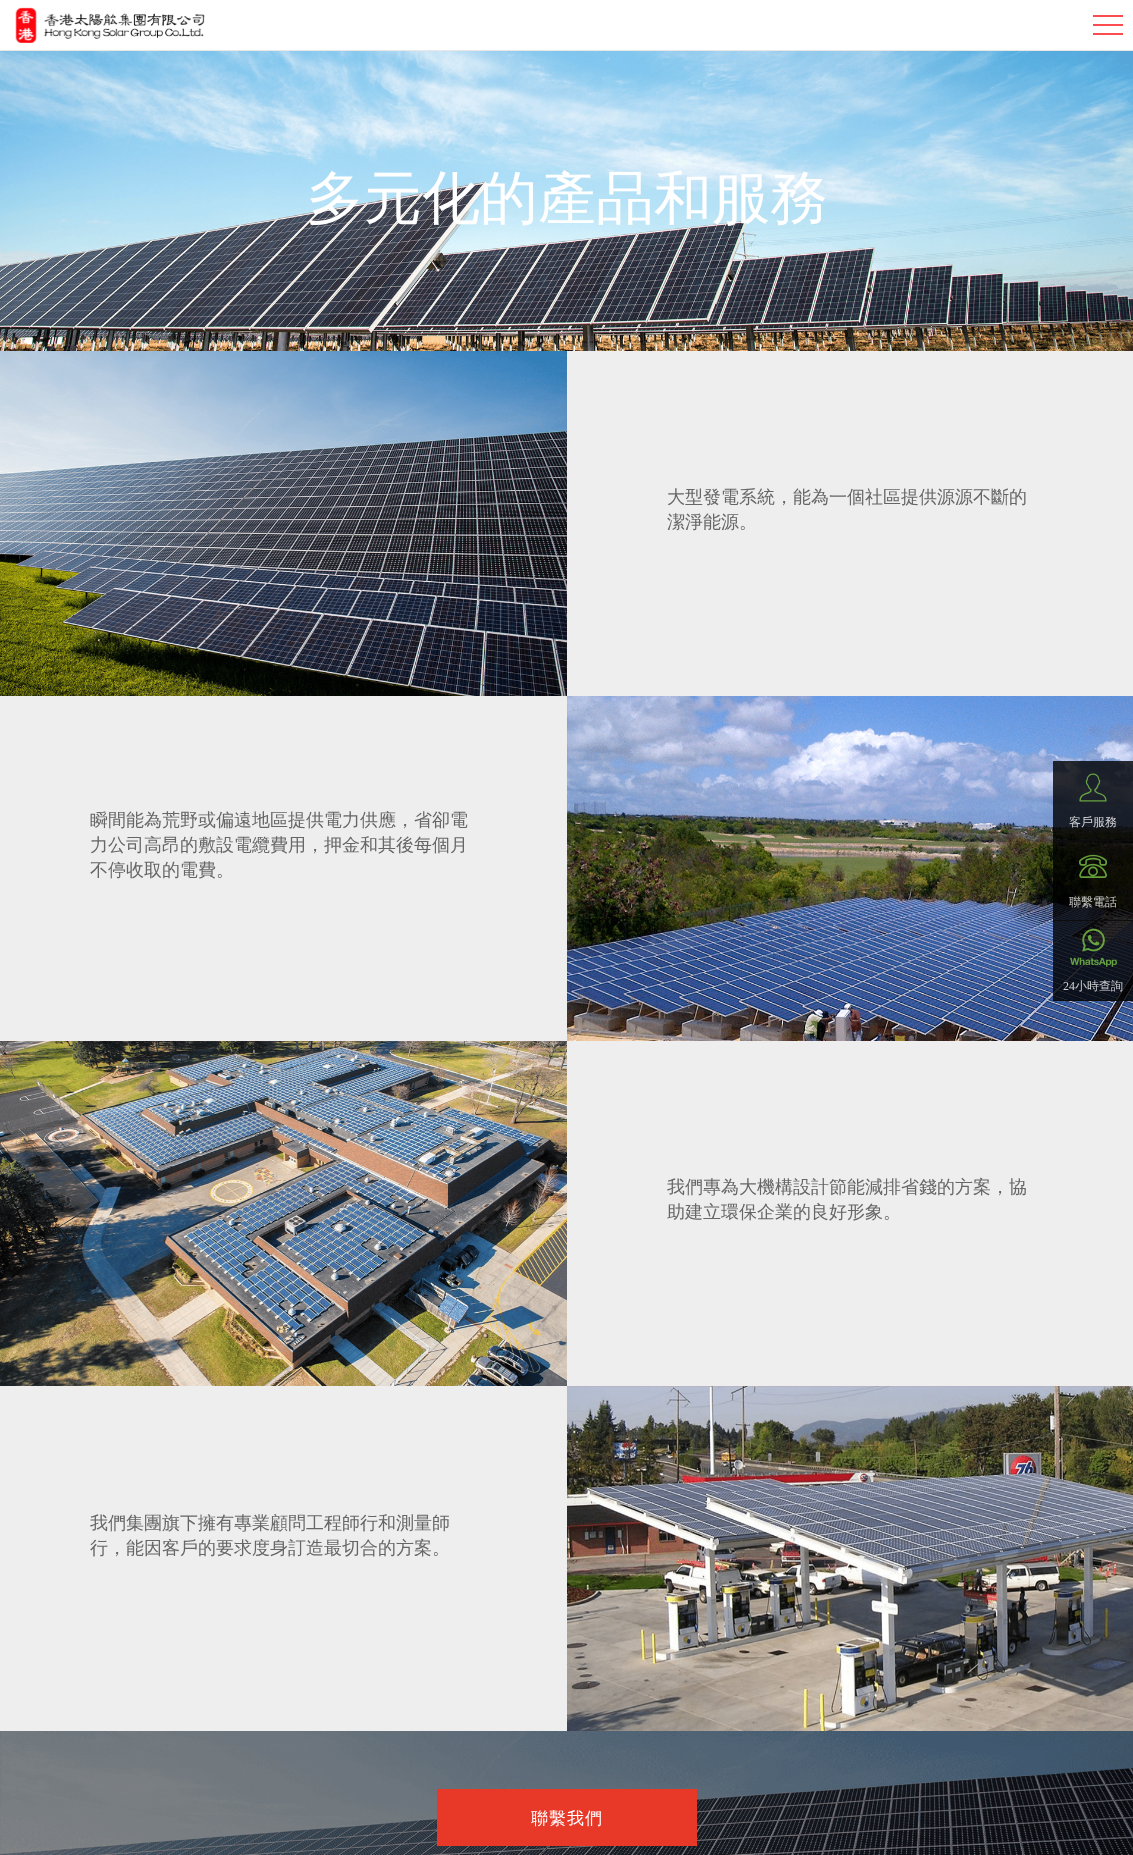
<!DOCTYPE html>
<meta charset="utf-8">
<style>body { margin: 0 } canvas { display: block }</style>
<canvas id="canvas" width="1133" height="1855"></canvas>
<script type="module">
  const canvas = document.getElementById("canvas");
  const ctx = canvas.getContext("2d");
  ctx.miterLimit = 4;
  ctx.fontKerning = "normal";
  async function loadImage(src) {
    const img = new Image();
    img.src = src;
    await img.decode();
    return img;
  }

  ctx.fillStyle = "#ffffff";
  ctx.fillRect(0, 0, 1133, 1855);
  ctx.fillStyle = "#e7e7e7";
  ctx.fillRect(0, 50, 1133, 1);
  ctx.drawImage(await loadImage("img1.png"), 15, 7, 190, 36);
  ctx.fillStyle = "#fb4d4f";
  ctx.fillRect(1093, 15, 30, 2);
  ctx.fillRect(1093, 24, 30, 2);
  ctx.fillRect(1093, 33, 30, 2);
  ctx.drawImage(await loadImage("img2.png"), 0, 51, 1133, 300);
  ctx.font = "500 58px WenQuanYi Zen Hei";
  ctx.fillStyle = "#ffffff";
  ctx.fillText("多元化的產品和服務", 306, 218);
  ctx.fillStyle = "#eeeeee";
  ctx.fillRect(567, 351, 566, 345);
  ctx.drawImage(await loadImage("img3.png"), 0, 351, 567, 345);
  ctx.font = "500 18px WenQuanYi Zen Hei";
  ctx.fillStyle = "#666666";
  ctx.fillText("大型發電系統，能為一個社區提供源源不斷的", 667, 503);
  ctx.fillText("潔淨能源。", 667, 528);
  ctx.fillStyle = "#eeeeee";
  ctx.fillRect(0, 696, 567, 345);
  ctx.fillStyle = "#666666";
  ctx.fillText("瞬間能為荒野或偏遠地區提供電力供應，省卻電", 90, 826);
  ctx.fillText("力公司高昂的敷設電纜費用，押金和其後每個月", 90, 851);
  ctx.fillText("不停收取的電費。", 90, 876);
  ctx.drawImage(await loadImage("img4.png"), 567, 696, 566, 345);
  ctx.fillStyle = "#eeeeee";
  ctx.fillRect(567, 1041, 566, 345);
  ctx.drawImage(await loadImage("img5.png"), 0, 1041, 567, 345);
  ctx.fillStyle = "#666666";
  ctx.fillText("我們專為大機構設計節能減排省錢的方案，協", 667, 1193);
  ctx.fillText("助建立環保企業的良好形象。", 667, 1218);
  ctx.fillStyle = "#eeeeee";
  ctx.fillRect(0, 1386, 567, 345);
  ctx.fillStyle = "#666666";
  ctx.fillText("我們集團旗下擁有專業顧問工程師行和測量師", 90, 1529);
  ctx.fillText("行，能因客戶的要求度身訂造最切合的方案。", 90, 1554);
  ctx.drawImage(await loadImage("img6.png"), 567, 1386, 566, 345);
  ctx.drawImage(await loadImage("img7.png"), 0, 1731, 1133, 124);
  ctx.fillStyle = "#e83828";
  ctx.fillRect(437, 1789, 260, 57);
  ctx.letterSpacing = "1px";
  ctx.font = "500 17px WenQuanYi Zen Hei";
  ctx.fillStyle = "#ffffff";
  ctx.fillText("聯繫我們", 531, 1824);
  ctx.fillStyle = "#444444";
  ctx.fillRect(1053, 840, 80, 1);
  ctx.fillStyle = "rgba(0, 0, 0, 0.8)";
  ctx.fillRect(1053, 761, 80, 80);
  ctx.drawImage(await loadImage("img8.png"), 1079, 773, 28, 29);
  ctx.letterSpacing = "0px";
  ctx.font = "500 12px WenQuanYi Zen Hei";
  ctx.fillStyle = "#d1d2d4";
  ctx.fillText("客戶服務", 1069, 826);
  ctx.fillStyle = "#444444";
  ctx.fillRect(1053, 920, 80, 1);
  ctx.fillStyle = "rgba(0, 0, 0, 0.8)";
  ctx.fillRect(1053, 841, 80, 80);
  ctx.drawImage(await loadImage("img9.png"), 1079, 854, 28, 24);
  ctx.fillStyle = "#cececd";
  ctx.fillText("聯繫電話", 1069, 906);
  ctx.fillStyle = "#444444";
  ctx.fillRect(1053, 1000, 80, 1);
  ctx.fillStyle = "rgba(0, 0, 0, 0.8)";
  ctx.fillRect(1053, 921, 80, 80);
  ctx.drawImage(await loadImage("img10.png"), 1070, 928, 47, 39);
  ctx.font = "12px Liberation Serif";
  ctx.fillStyle = "#d1d2d4";
  ctx.fillText("24", 1063, 990);
  ctx.font = "500 12px WenQuanYi Zen Hei";
  ctx.fillText("小時查詢", 1075, 990);
</script>
